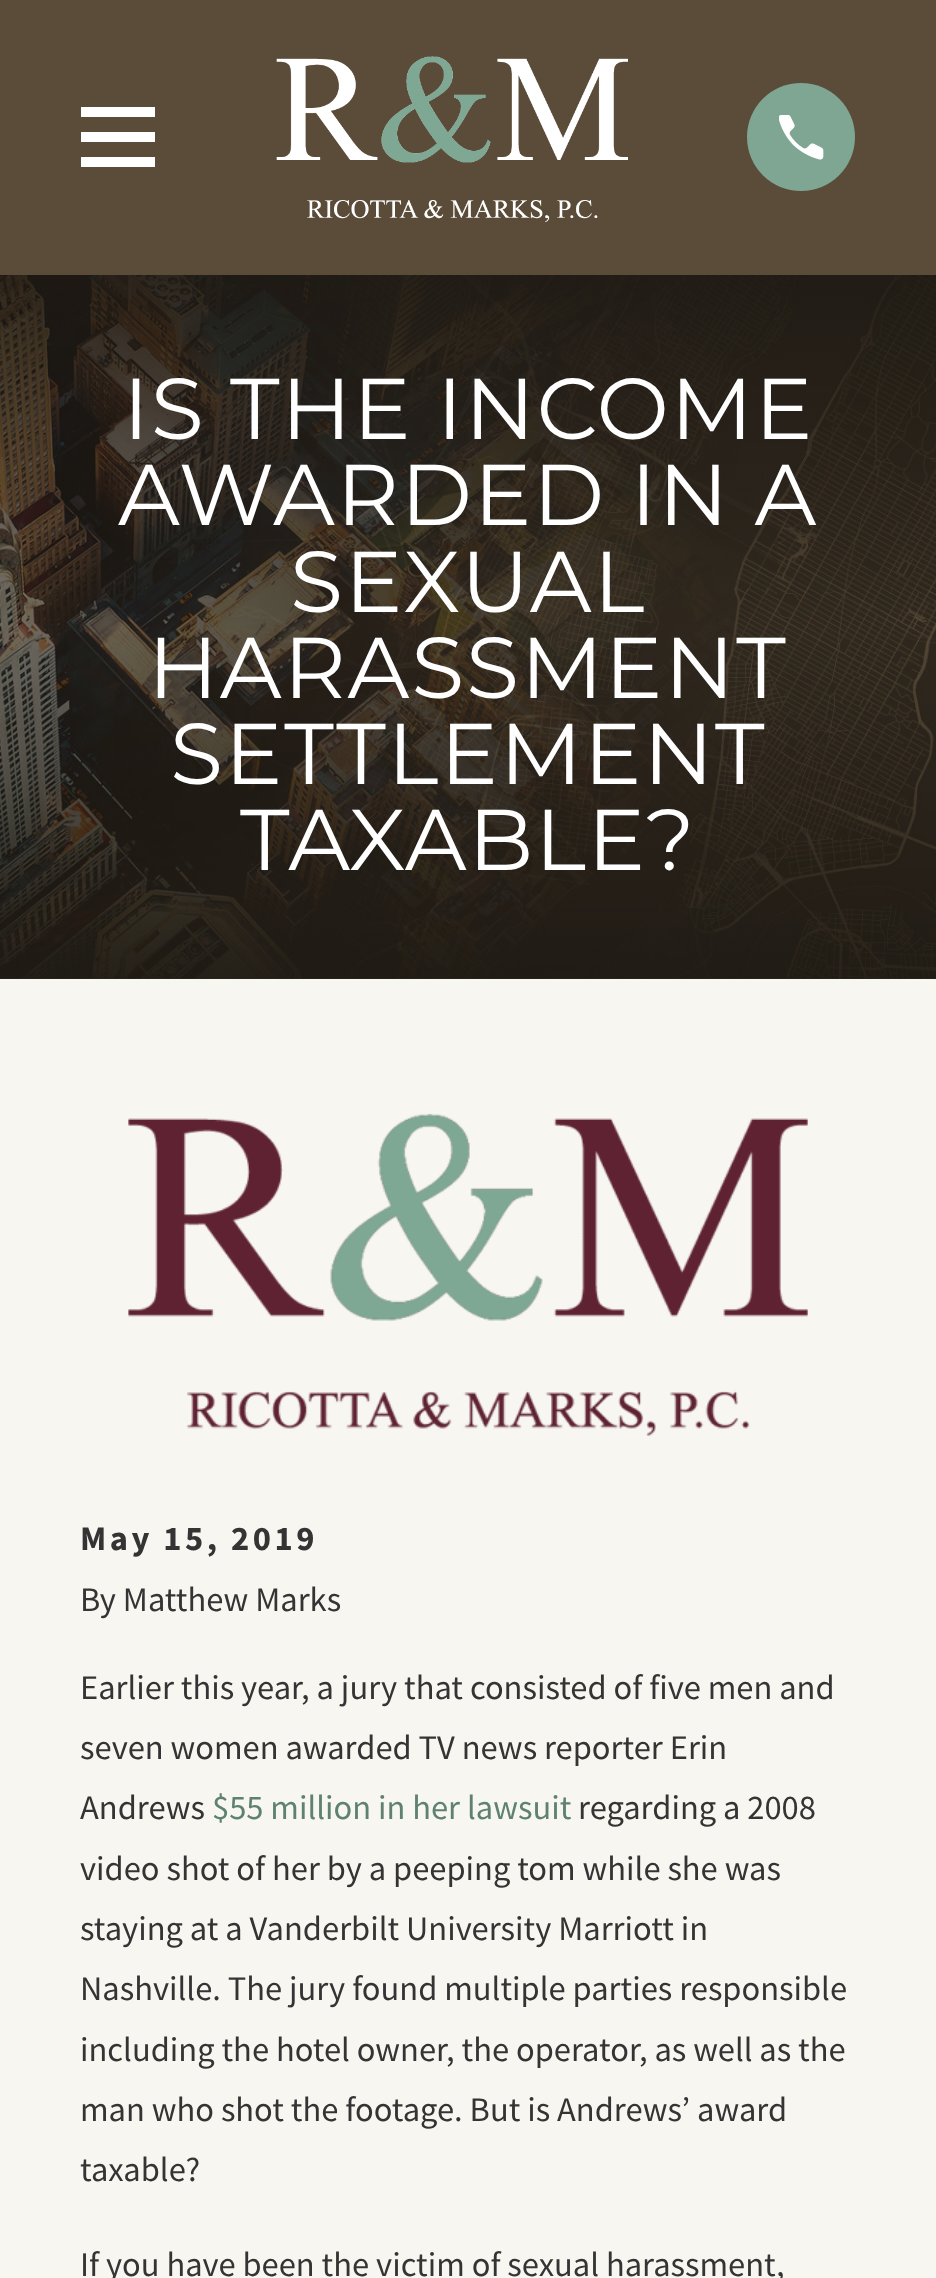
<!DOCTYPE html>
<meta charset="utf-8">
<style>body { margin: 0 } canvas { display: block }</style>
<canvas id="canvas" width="936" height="2278"></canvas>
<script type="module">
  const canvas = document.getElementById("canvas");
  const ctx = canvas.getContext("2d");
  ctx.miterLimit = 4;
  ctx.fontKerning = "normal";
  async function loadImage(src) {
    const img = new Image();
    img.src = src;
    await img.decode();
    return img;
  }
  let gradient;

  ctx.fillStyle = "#f7f6f1";
  ctx.fillRect(0, 0, 936, 2278);
  ctx.fillStyle = "#5b4c39";
  ctx.fillRect(0, 0, 936, 275);
  ctx.save();
  ctx.beginPath();
  ctx.rect(81, 99, 74, 77);
  ctx.clip();
  ctx.fillStyle = "#ffffff";
  ctx.beginPath();
  ctx.moveTo(81, 107);
  ctx.lineTo(81, 117);
  ctx.lineTo(157, 117);
  ctx.lineTo(157, 107);
  ctx.closePath();
  ctx.moveTo(81, 132);
  ctx.lineTo(81, 142);
  ctx.lineTo(157, 142);
  ctx.lineTo(157, 132);
  ctx.closePath();
  ctx.moveTo(81, 157);
  ctx.lineTo(81, 167);
  ctx.lineTo(157, 167);
  ctx.lineTo(157, 157);
  ctx.closePath();
  ctx.fill();
  ctx.restore();
  ctx.drawImage(await loadImage("img1.png"), 276, 56, 352, 166);
  ctx.fillStyle = "#7ea693";
  ctx.beginPath();
  ctx.arc(801, 137, 54, 0, Math.PI * 2);
  ctx.fill();
  ctx.drawImage(await loadImage("img2.png"), 779, 115, 45, 45);
  ctx.fillStyle = "#5b4c39";
  ctx.fillRect(0, 978, 936, 1);
  ctx.drawImage(await loadImage("img3.png"), 0, 275, 936, 704);
  gradient = ctx.createLinearGradient(468, 979, 468, 275);
  gradient.addColorStop(0, "rgba(0, 0, 0, 0.47)");
  gradient.addColorStop(0.5, "rgba(0, 0, 0, 0.23)");
  gradient.addColorStop(1, "rgba(0, 0, 0, 0.47)");
  ctx.fillStyle = gradient;
  ctx.fillRect(0, 275, 936, 704);
  ctx.letterSpacing = "1.75px";
  ctx.font = "86.25px Montserrat";
  ctx.fillStyle = "#ffffff";
  ctx.fillText("IS THE INCOME", 123, 439);
  ctx.fillText("AWARDED IN A", 118, 525);
  ctx.fillText("SEXUAL", 290, 612);
  ctx.fillText("HARASSMENT", 148, 698);
  ctx.fillText("SETTLEMENT", 170, 784);
  ctx.fillText("TAXABLE?", 240, 870);
  ctx.drawImage(await loadImage("img4.png"), 128, 1113, 680, 323);
  ctx.letterSpacing = "3.5px";
  ctx.font = "bold 34.5px Source Sans Pro";
  ctx.fillStyle = "#343434";
  ctx.fillText("May 15, 2019", 80, 1550);
  ctx.letterSpacing = "0px";
  ctx.font = "34.5px Source Sans Pro";
  ctx.fillText("By Matthew Marks", 80, 1611);
  ctx.fillText("Earlier this year, a jury that consisted of five men and", 80, 1699);
  ctx.fillText("seven women awarded TV news reporter Erin", 80, 1759);
  ctx.fillText("Andrews", 80, 1819);
  ctx.fillStyle = "#5e8170";
  ctx.fillText("$55 million in her lawsuit", 212, 1819);
  ctx.fillStyle = "#343434";
  ctx.fillText("regarding a 2008", 578, 1819);
  ctx.fillText("video shot of her by a peeping tom while she was", 80, 1880);
  ctx.fillText("staying at a Vanderbilt University Marriott in", 80, 1940);
  ctx.fillText("Nashville. The jury found multiple parties responsible", 80, 2000);
  ctx.fillText("including the hotel owner, the operator, as well as the", 80, 2061);
  ctx.fillText("man who shot the footage. But is Andrews’ award", 80, 2121);
  ctx.fillText("taxable?", 80, 2181);
  ctx.fillText("If you have been the victim of sexual harassment,", 80, 2276);
</script>
